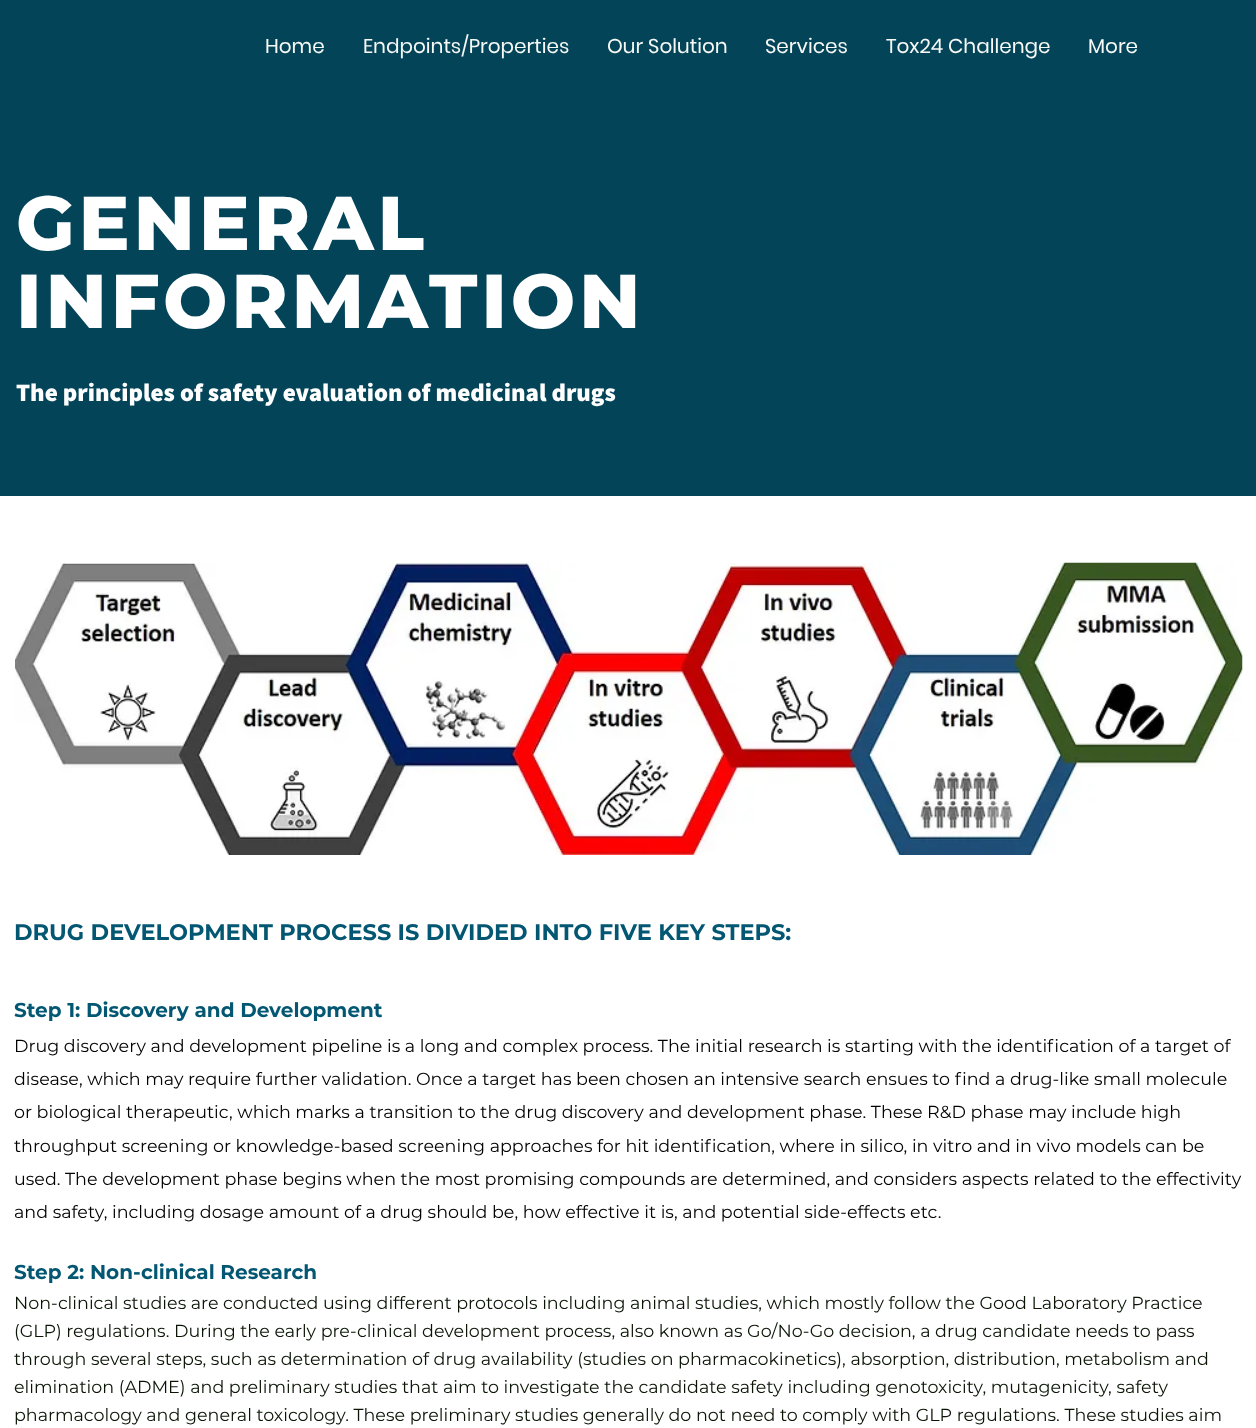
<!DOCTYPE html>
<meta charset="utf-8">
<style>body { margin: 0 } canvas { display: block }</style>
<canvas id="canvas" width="1256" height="1428"></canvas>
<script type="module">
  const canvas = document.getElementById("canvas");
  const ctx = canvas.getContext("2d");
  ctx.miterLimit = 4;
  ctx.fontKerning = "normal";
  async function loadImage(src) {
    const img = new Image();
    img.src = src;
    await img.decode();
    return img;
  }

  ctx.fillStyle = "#ffffff";
  ctx.fillRect(0, 0, 1256, 1428);
  ctx.fillStyle = "#034459";
  ctx.fillRect(0, 0, 1256, 496);
  ctx.font = "20px Poppins";
  ctx.fillStyle = "#f6f9f5";
  ctx.fillText("Home", 265, 53);
  ctx.fillText("Endpoints/Properties", 363, 53);
  ctx.fillText("Our Solution", 607, 53);
  ctx.fillText("Services", 765, 53);
  ctx.fillText("Tox24 Challenge", 886, 53);
  ctx.fillText("More", 1088, 53);
  ctx.letterSpacing = "3.75px";
  ctx.font = "800 76.25px Montserrat";
  ctx.fillStyle = "#ffffff";
  ctx.fillText("GENERAL", 16, 250);
  ctx.fillText("INFORMATION", 16, 328);
  ctx.letterSpacing = "0px";
  ctx.font = "800 25px Assistant";
  ctx.fillText("The principles of safety evaluation of medicinal drugs", 16, 401);
  ctx.drawImage(await loadImage("img1.png"), 15, 562, 1228, 293);
  ctx.font = "bold 22.5px Montserrat";
  ctx.fillStyle = "#035772";
  ctx.fillText("DRUG DEVELOPMENT PROCESS IS DIVIDED INTO FIVE KEY STEPS:", 14, 940);
  ctx.font = "bold 20px Montserrat";
  ctx.fillText("Step 1: Discovery and Development", 14, 1017);
  ctx.font = "17.5px Montserrat";
  ctx.fillStyle = "#000000";
  ctx.fillText("Drug discovery and development pipeline is a long and complex process. The initial research is starting with the identification of a target of", 14, 1052);
  ctx.fillText("disease, which may require further validation. Once a target has been chosen an intensive search ensues to find a drug-like small molecule", 14, 1085);
  ctx.fillText("or biological therapeutic, which marks a transition to the drug discovery and development phase. These R&D phase may include high", 14, 1118);
  ctx.fillText("throughput screening or knowledge-based screening approaches for hit identification, where in silico, in vitro and in vivo models can be", 14, 1152);
  ctx.fillText("used. The development phase begins when the most promising compounds are determined, and considers aspects related to the effectivity", 14, 1185);
  ctx.fillText("and safety, including dosage amount of a drug should be, how effective it is, and potential side-effects etc.", 14, 1218);
  ctx.font = "bold 20px Montserrat";
  ctx.fillStyle = "#035772";
  ctx.fillText("Step 2: Non-clinical Research", 14, 1279);
  ctx.font = "17.5px Montserrat";
  ctx.fillStyle = "#091405";
  ctx.fillText("Non-clinical studies are conducted using different protocols including animal studies, which mostly follow the Good Laboratory Practice", 14, 1309);
  ctx.fillText("(GLP) regulations. During the early pre-clinical development process, also known as Go/No-Go decision, a drug candidate needs to pass", 14, 1337);
  ctx.fillText("through several steps, such as determination of drug availability (studies on pharmacokinetics), absorption, distribution, metabolism and", 14, 1365);
  ctx.fillText("elimination (ADME) and preliminary studies that aim to investigate the candidate safety including genotoxicity, mutagenicity, safety", 14, 1393);
  ctx.fillText("pharmacology and general toxicology. These preliminary studies generally do not need to comply with GLP regulations. These studies aim", 14, 1421);
</script>
